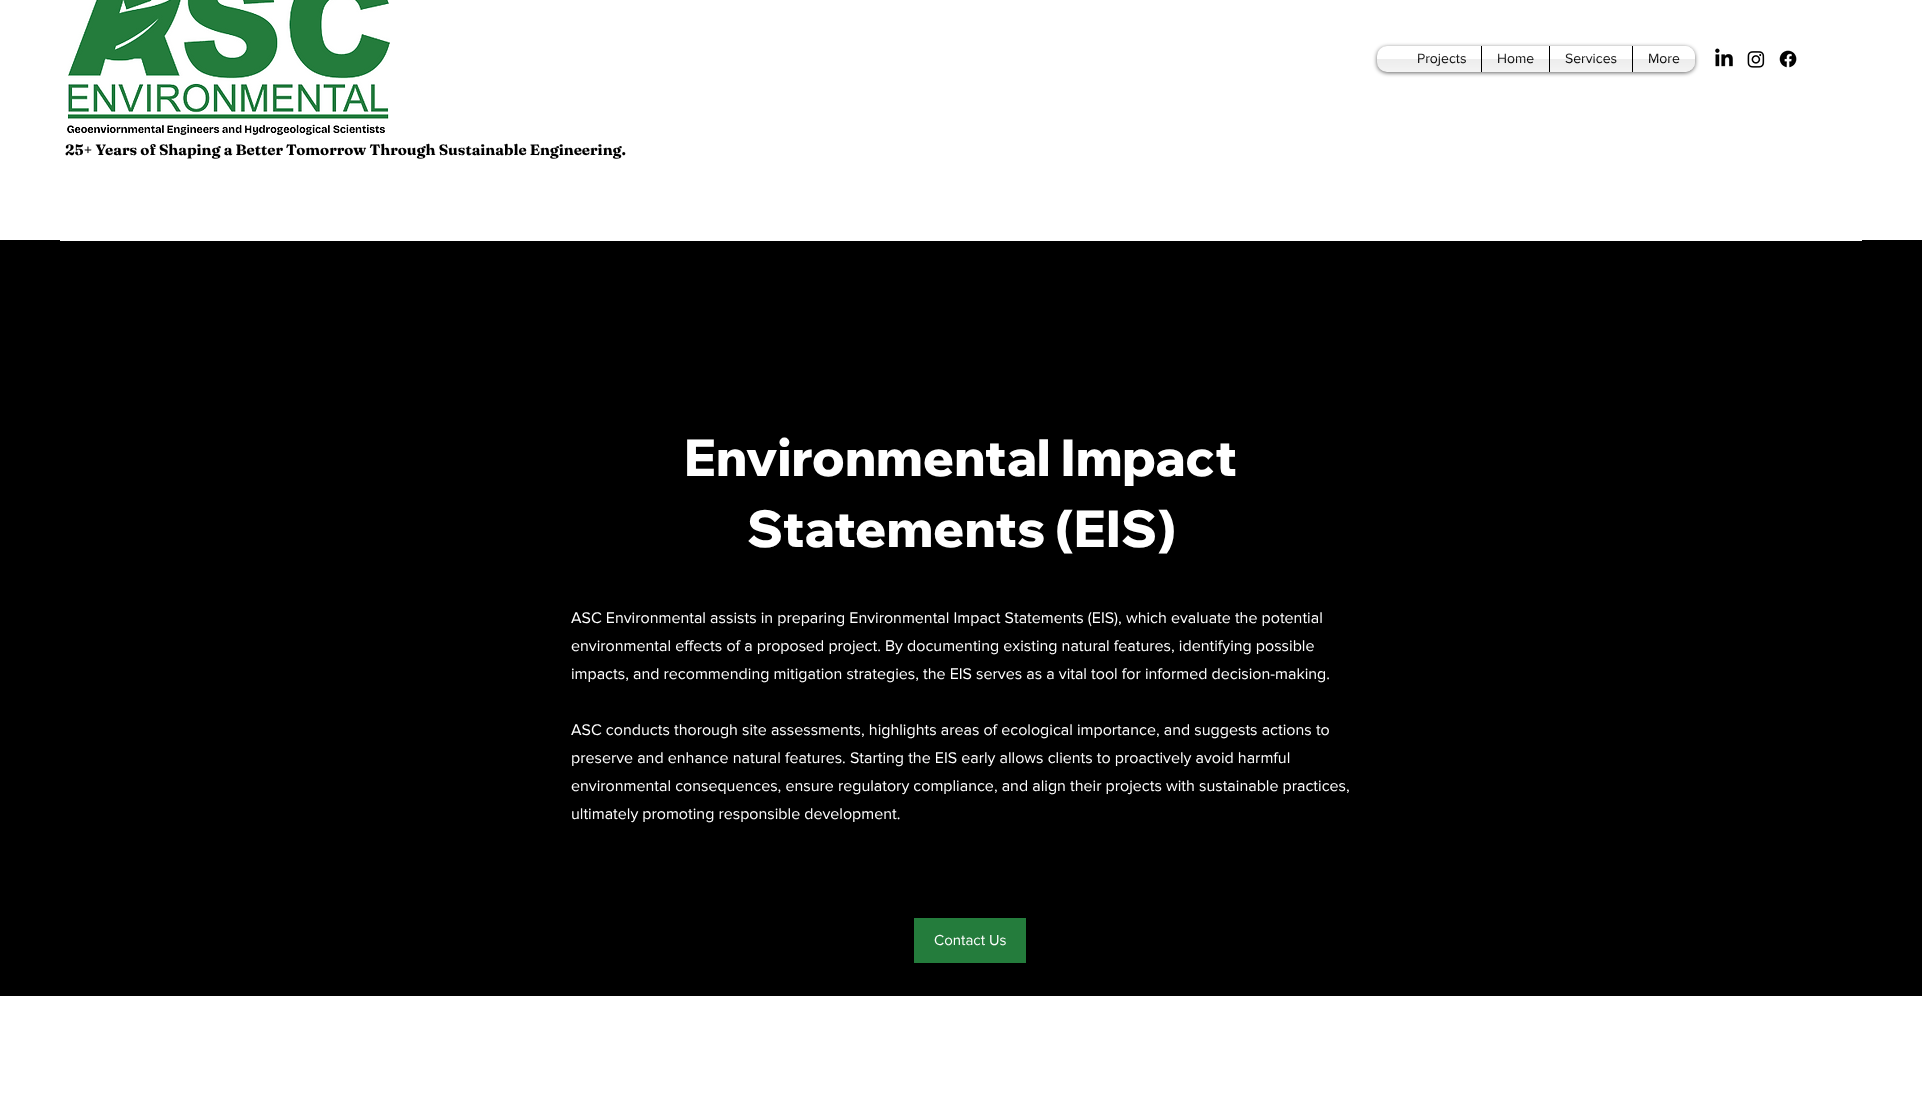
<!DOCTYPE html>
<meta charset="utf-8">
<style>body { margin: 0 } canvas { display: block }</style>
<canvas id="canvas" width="1922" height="1105"></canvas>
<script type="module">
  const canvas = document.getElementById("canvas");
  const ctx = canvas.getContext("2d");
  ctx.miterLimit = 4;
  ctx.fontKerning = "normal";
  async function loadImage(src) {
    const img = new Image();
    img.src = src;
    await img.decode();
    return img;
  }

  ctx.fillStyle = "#ffffff";
  ctx.fillRect(0, 0, 1922, 1105);
  ctx.fillStyle = "rgba(0, 0, 0, 0.6)";
  ctx.filter = "blur(2px)";
  ctx.beginPath();
  ctx.roundRect(1377, 47, 318, 26, 10);
  ctx.fill();
  ctx.filter = "none";
  ctx.fillStyle = "#ffffff";
  ctx.beginPath();
  ctx.roundRect(1377, 46, 318, 26, 10);
  ctx.fill();
  ctx.drawImage(await loadImage("img1.png"), 1377, 59, 318, 13);
  ctx.fillRect(1402, 59, 79, 13);
  ctx.font = "14px 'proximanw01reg'";
  ctx.fillStyle = "#000000";
  ctx.fillText("Projects", 1417, 63);
  ctx.drawImage(await loadImage("img2.png"), 1402, 53, 79, 19);
  ctx.fillStyle = "#ffffff";
  ctx.fillRect(1482, 59, 67, 13);
  ctx.fillStyle = "#000000";
  ctx.fillRect(1481, 46, 1, 26);
  ctx.fillText("Home", 1497, 63);
  ctx.drawImage(await loadImage("img3.png"), 1482, 53, 67, 19);
  ctx.fillStyle = "#ffffff";
  ctx.fillRect(1550, 59, 82, 13);
  ctx.fillStyle = "#000000";
  ctx.fillRect(1549, 46, 1, 26);
  ctx.fillText("Services", 1565, 63);
  ctx.drawImage(await loadImage("img4.png"), 1550, 53, 82, 19);
  ctx.fillStyle = "#ffffff";
  ctx.beginPath();
  ctx.roundRect(1632, 46, 63, 26, [0, 10, 10, 0]);
  ctx.fill();
  ctx.fillStyle = "#000000";
  ctx.fillRect(1632, 46, 1, 26);
  ctx.fillText("More", 1648, 63);
  ctx.drawImage(await loadImage("img5.png"), 1633, 53, 62, 19);
  ctx.drawImage(await loadImage("img6.png"), 1715, 48, 18, 19);
  ctx.drawImage(await loadImage("img7.png"), 1747, 51, 18, 17);
  ctx.drawImage(await loadImage("img8.png"), 1779, 50, 18, 18);
  ctx.drawImage(await loadImage("img9.png"), 67, 0, 323, 135);
  ctx.font = "bold 15px Fraunces";
  ctx.fillText("25+ Years of Shaping a Better Tomorrow Through Sustainable Engineering.", 65, 155);
  ctx.fillRect(0, 240, 1922, 756);
  ctx.fillStyle = "#ffffff";
  ctx.fillRect(60, 240, 1802, 1);
  ctx.font = "800 51px Wix Madefor Display";
  ctx.fillText("Environmental Impact", 684, 476);
  ctx.fillText("Statements (EIS)", 747, 547);
  ctx.font = "16px 'proximanw01reg'";
  ctx.fillText("ASC Environmental assists in preparing Environmental Impact Statements (EIS), which evaluate the potential", 571, 623);
  ctx.fillText("environmental effects of a proposed project. By documenting existing natural features, identifying possible", 571, 651);
  ctx.fillText("impacts, and recommending mitigation strategies, the EIS serves as a vital tool for informed decision-making.", 571, 679);
  ctx.fillText("ASC conducts thorough site assessments, highlights areas of ecological importance, and suggests actions to", 571, 735);
  ctx.fillText("preserve and enhance natural features. Starting the EIS early allows clients to proactively avoid harmful", 571, 763);
  ctx.fillText("environmental consequences, ensure regulatory compliance, and align their projects with sustainable practices,", 571, 791);
  ctx.fillText("ultimately promoting responsible development.", 571, 819);
  ctx.fillStyle = "#247c3c";
  ctx.fillRect(914, 918, 112, 45);
  ctx.font = "15px 'proximanw01reg'";
  ctx.fillStyle = "#ffffff";
  ctx.fillText("Contact Us", 934, 945);
</script>
